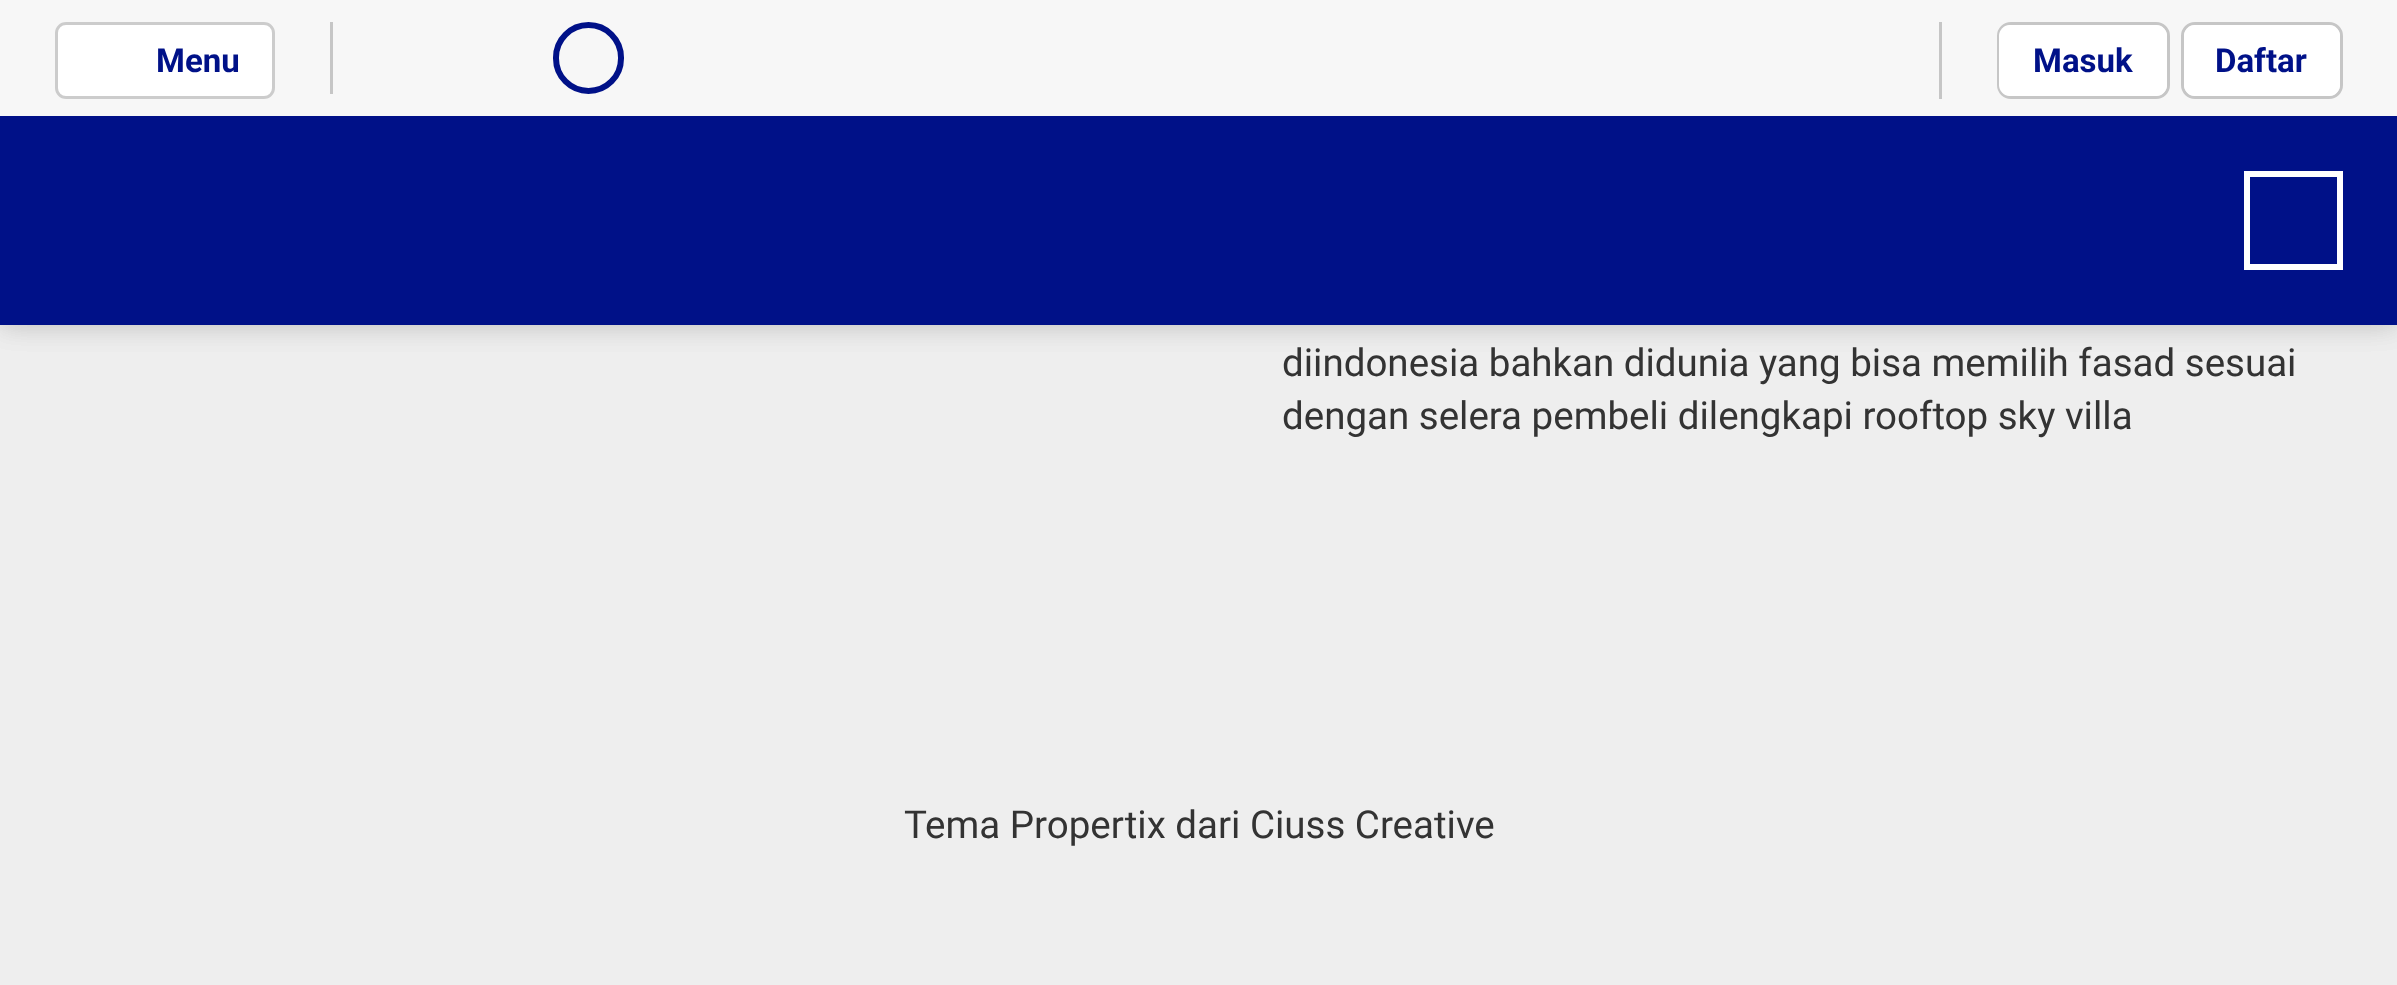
<!DOCTYPE html>
<meta charset="utf-8">
<style>body { margin: 0 } canvas { display: block }</style>
<canvas id="canvas" width="2397" height="985"></canvas>
<script type="module">
  const canvas = document.getElementById("canvas");
  const ctx = canvas.getContext("2d");
  ctx.miterLimit = 4;
  ctx.fontKerning = "normal";

  ctx.fillStyle = "#eeeeee";
  ctx.fillRect(0, 0, 2397, 985);
  ctx.fillStyle = "rgba(0, 0, 0, 0.1)";
  ctx.filter = "blur(14px)";
  ctx.beginPath();
  ctx.rect(0, 0, 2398, 325);
  ctx.fill();
  ctx.filter = "none";
  ctx.filter = "blur(14px)";
  ctx.beginPath();
  ctx.rect(0, 116, 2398, 209);
  ctx.fill();
  ctx.filter = "none";
  ctx.fillStyle = "#f7f7f7";
  ctx.fillRect(0, 0, 2397, 116);
  ctx.fillStyle = "#ffffff";
  ctx.beginPath();
  ctx.roundRect(55, 22, 220, 77, 11);
  ctx.fill();
  ctx.beginPath();
  ctx.roundRect(56.5, 23.5, 217, 74, 9.5);
  ctx.strokeStyle = "rgba(0, 0, 0, 0.2)";
  ctx.lineWidth = 3;
  ctx.stroke();
  ctx.font = "bold 33px Roboto";
  ctx.fillStyle = "#001188";
  ctx.fillText("Menu", 156, 72);
  ctx.fillStyle = "#c6c6c6";
  ctx.fillRect(330, 22, 3, 72);
  ctx.beginPath();
  ctx.roundRect(556, 25, 65, 66, 32.5);
  ctx.strokeStyle = "#001188";
  ctx.lineWidth = 6;
  ctx.stroke();
  ctx.fillRect(1939, 22, 3, 77);
  ctx.beginPath();
  ctx.roundRect(1998.5, 23.5, 170, 74, 12.5);
  ctx.strokeStyle = "#c6c6c6";
  ctx.lineWidth = 3;
  ctx.stroke();
  ctx.fillStyle = "#ffffff";
  ctx.beginPath();
  ctx.roundRect(1999, 25, 168, 71, 11);
  ctx.fill();
  ctx.fillStyle = "#001188";
  ctx.fillText("Masuk", 2033, 72);
  ctx.beginPath();
  ctx.roundRect(2182.5, 23.5, 159, 74, 12.5);
  ctx.stroke();
  ctx.fillStyle = "#ffffff";
  ctx.beginPath();
  ctx.roundRect(2184, 25, 156, 71, 11);
  ctx.fill();
  ctx.fillStyle = "#001188";
  ctx.fillText("Daftar", 2215, 72);
  ctx.fillRect(0, 116, 2397, 209);
  ctx.strokeStyle = "#ffffff";
  ctx.lineWidth = 6;
  ctx.strokeRect(2247, 174, 93, 93);
  ctx.font = "38.5px Roboto";
  ctx.fillStyle = "#333333";
  ctx.fillText("diindonesia bahkan didunia yang bisa memilih fasad sesuai", 1282, 376);
  ctx.fillText("dengan selera pembeli dilengkapi rooftop sky villa", 1282, 429);
  ctx.fillText("Tema Propertix dari Ciuss Creative", 904, 838);
</script>
